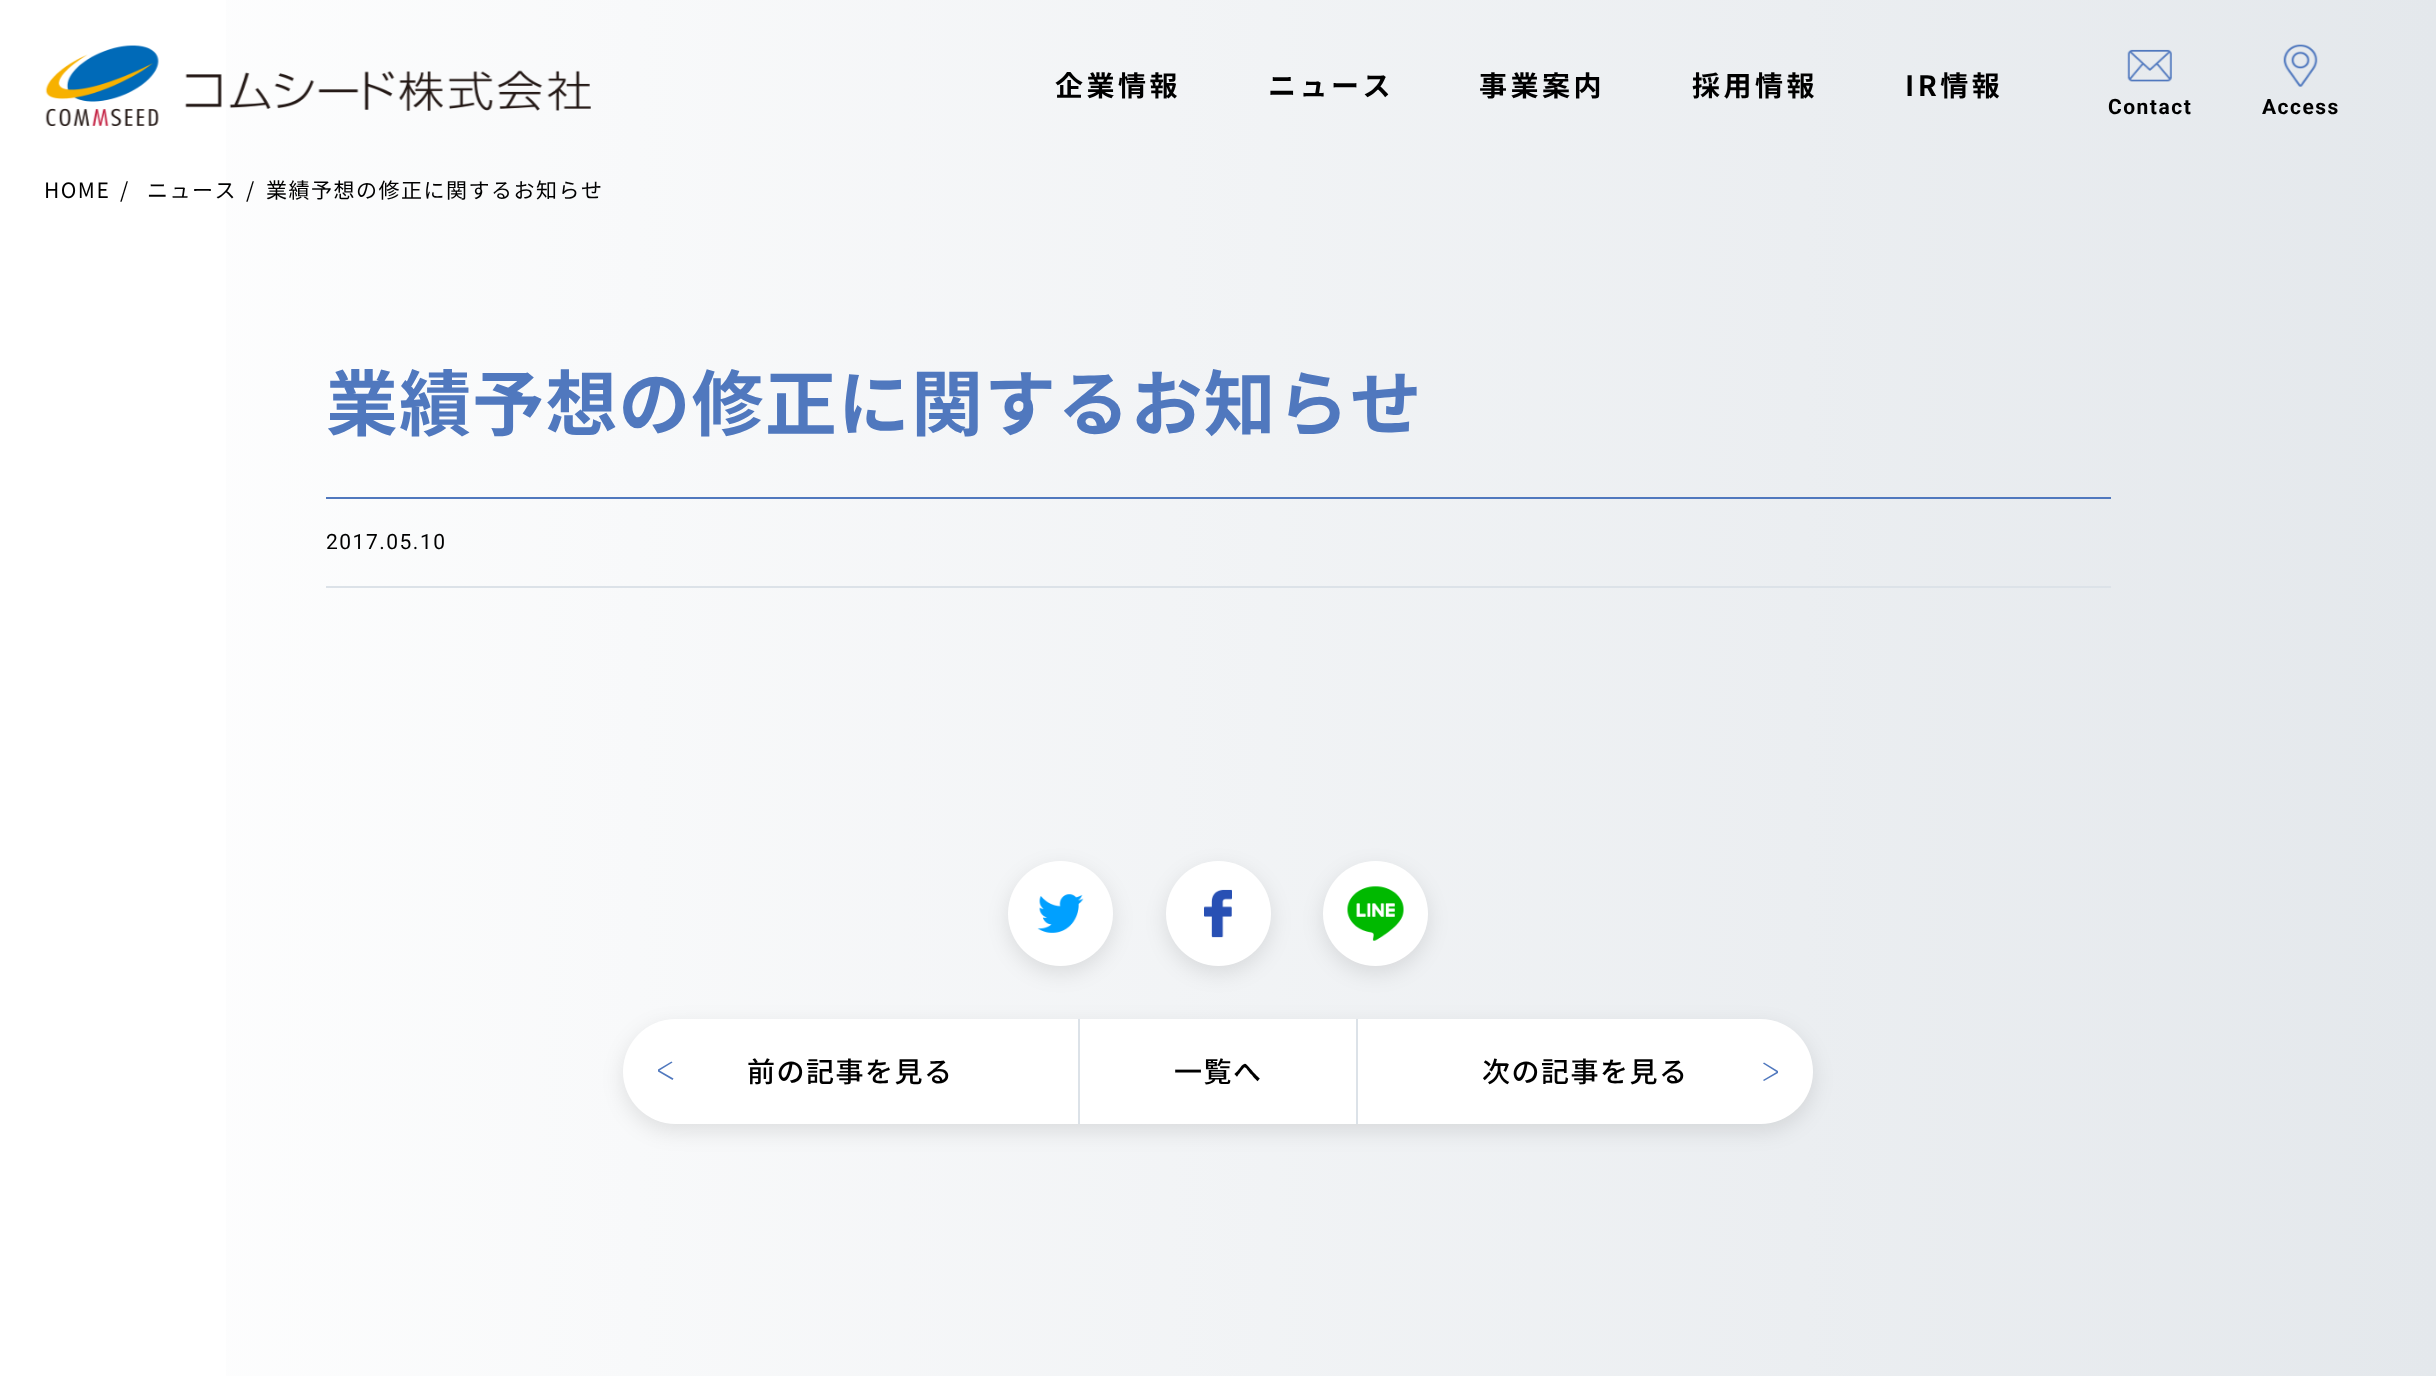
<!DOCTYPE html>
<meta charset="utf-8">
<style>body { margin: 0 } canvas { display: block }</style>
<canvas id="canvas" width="2436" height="1376"></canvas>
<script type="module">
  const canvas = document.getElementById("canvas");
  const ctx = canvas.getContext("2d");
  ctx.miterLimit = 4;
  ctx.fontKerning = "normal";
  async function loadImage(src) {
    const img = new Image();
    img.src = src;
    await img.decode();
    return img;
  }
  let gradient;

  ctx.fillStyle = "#ffffff";
  ctx.fillRect(0, 0, 2436, 1376);
  gradient = ctx.createLinearGradient(0, 1327, 2436, 1327);
  gradient.addColorStop(0, "#ffffff");
  gradient.addColorStop(1, "#e4e8ec");
  ctx.fillStyle = gradient;
  ctx.fillRect(226, 0, 2210, 1376);
  ctx.drawImage(await loadImage("img1.png"), 45, 45, 546, 81);
  ctx.letterSpacing = "3.5px";
  ctx.font = "bold 28px Noto Sans JP";
  ctx.fillStyle = "#000000";
  ctx.fillText("企業情報", 1055, 96);
  ctx.fillText("ニュース", 1268, 96);
  ctx.fillText("事業案内", 1479, 96);
  ctx.fillText("採用情報", 1692, 96);
  ctx.fillText("IR情報", 1905, 96);
  ctx.drawImage(await loadImage("img2.png"), 2127, 49, 45, 33);
  ctx.letterSpacing = "1.5px";
  ctx.font = "bold 21px Roboto";
  ctx.fillText("Contact", 2108, 114);
  ctx.drawImage(await loadImage("img3.png"), 2283, 44, 35, 43);
  ctx.fillText("Access", 2262, 114);
  ctx.font = "21px Noto Sans JP";
  ctx.fillText("HOME", 44, 198);
  ctx.fillText("/", 120, 198);
  ctx.fillText("ニュース", 147, 198);
  ctx.fillText("/", 246, 198);
  ctx.fillText("業績予想の修正に関するお知らせ", 266, 198);
  ctx.fillStyle = "#dce2e8";
  ctx.fillRect(326, 586, 1785, 2);
  ctx.letterSpacing = "1.4px";
  ctx.font = "bold 71.75px Noto Sans JP";
  ctx.fillStyle = "#5078be";
  ctx.fillText("業績予想の修正に関するお知らせ", 326, 430);
  ctx.fillRect(326, 497, 1785, 2);
  ctx.letterSpacing = "1.5px";
  ctx.font = "21px Roboto";
  ctx.fillStyle = "#000000";
  ctx.fillText("2017.05.10", 326, 549);
  ctx.fillStyle = "rgba(0, 0, 0, 0.1)";
  ctx.filter = "blur(10.5px)";
  ctx.beginPath();
  ctx.roundRect(1008, 868, 105, 105, 52.5);
  ctx.fill();
  ctx.filter = "none";
  ctx.fillStyle = "#ffffff";
  ctx.beginPath();
  ctx.arc(1060.5, 913.5, 52.5, 0, Math.PI * 2);
  ctx.fill();
  ctx.drawImage(await loadImage("img4.png"), 1037, 894, 47, 39);
  ctx.fillStyle = "rgba(0, 0, 0, 0.1)";
  ctx.filter = "blur(10.5px)";
  ctx.beginPath();
  ctx.roundRect(1166, 868, 105, 105, 52.5);
  ctx.fill();
  ctx.filter = "none";
  ctx.fillStyle = "#ffffff";
  ctx.beginPath();
  ctx.arc(1218.5, 913.5, 52.5, 0, Math.PI * 2);
  ctx.fill();
  ctx.drawImage(await loadImage("img5.png"), 1204, 889, 28, 49);
  ctx.fillStyle = "rgba(0, 0, 0, 0.1)";
  ctx.filter = "blur(10.5px)";
  ctx.beginPath();
  ctx.roundRect(1323, 868, 105, 105, 52.5);
  ctx.fill();
  ctx.filter = "none";
  ctx.fillStyle = "#ffffff";
  ctx.beginPath();
  ctx.arc(1375.5, 913.5, 52.5, 0, Math.PI * 2);
  ctx.fill();
  ctx.drawImage(await loadImage("img6.png"), 1347, 886, 57, 55);
  ctx.fillStyle = "rgba(0, 0, 0, 0.1)";
  ctx.filter = "blur(10.5px)";
  ctx.beginPath();
  ctx.roundRect(623, 1026, 1190, 105, 52.5);
  ctx.fill();
  ctx.filter = "none";
  ctx.fillStyle = "#ffffff";
  ctx.beginPath();
  ctx.roundRect(623, 1019, 1190, 105, 52.5);
  ctx.fill();
  ctx.fillStyle = "#5078be";
  ctx.beginPath();
  ctx.moveTo(658, 1071.5);
  ctx.lineTo(658, 1069.5);
  ctx.lineTo(671.5, 1061.5);
  ctx.lineTo(672.5, 1062.5);
  ctx.lineTo(659.5, 1070.5);
  ctx.lineTo(673.5, 1078.5);
  ctx.lineTo(672.5, 1080);
  ctx.closePath();
  ctx.fill();
  ctx.font = "500 28px Noto Sans JP";
  ctx.fillStyle = "#000000";
  ctx.fillText("前の記事を見る", 747, 1082);
  ctx.fillStyle = "#dce2e8";
  ctx.fillRect(1356, 1019, 2, 105);
  ctx.fillRect(1078, 1019, 2, 105);
  ctx.fillStyle = "#000000";
  ctx.fillText("一覧へ", 1174, 1082);
  ctx.fillText("次の記事を見る", 1482, 1082);
  ctx.fillStyle = "#5078be";
  ctx.beginPath();
  ctx.moveTo(1778, 1073);
  ctx.lineTo(1764, 1081);
  ctx.lineTo(1763, 1080);
  ctx.lineTo(1776.5, 1072);
  ctx.lineTo(1763, 1063.5);
  ctx.lineTo(1764, 1062.5);
  ctx.lineTo(1778, 1071);
  ctx.closePath();
  ctx.fill();
</script>
